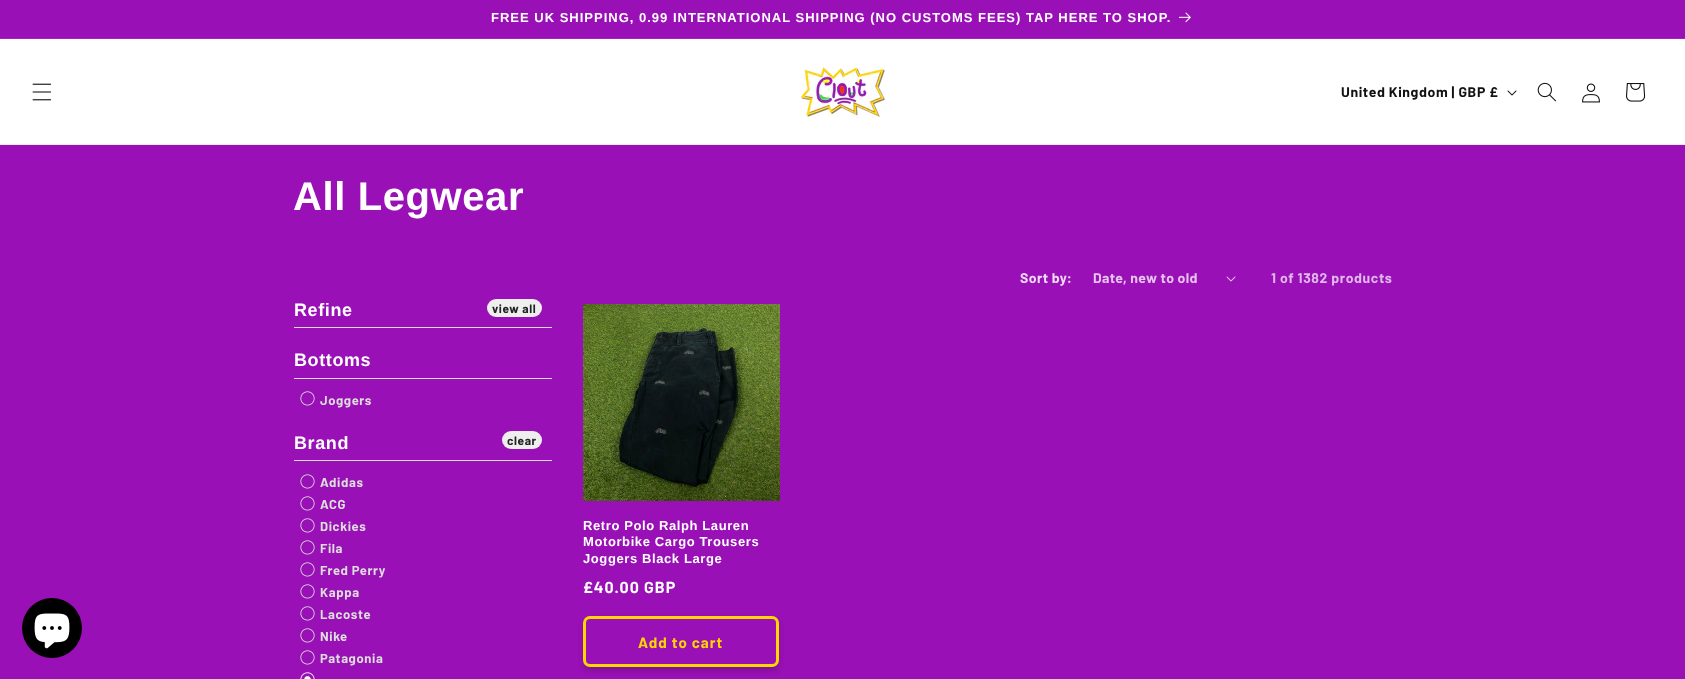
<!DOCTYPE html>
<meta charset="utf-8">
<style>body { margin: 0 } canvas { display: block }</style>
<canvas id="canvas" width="1685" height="679"></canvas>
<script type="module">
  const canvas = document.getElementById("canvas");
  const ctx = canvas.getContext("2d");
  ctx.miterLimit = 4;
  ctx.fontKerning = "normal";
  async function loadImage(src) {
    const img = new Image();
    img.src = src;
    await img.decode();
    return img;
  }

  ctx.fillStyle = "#9910b6";
  ctx.fillRect(0, 0, 1685, 679);
  ctx.fillStyle = "#a123bc";
  ctx.fillRect(0, 38, 1685, 1);
  ctx.letterSpacing = "1px";
  ctx.font = "bold 13px Liberation Sans";
  ctx.fillStyle = "#ffffff";
  ctx.fillText("FREE UK SHIPPING, 0.99 INTERNATIONAL SHIPPING (NO CUSTOMS FEES) TAP HERE TO SHOP.", 491, 22);
  ctx.drawImage(await loadImage("img1.png"), 1179, 12, 12, 11);
  ctx.fillRect(0, 39, 1685, 105);
  ctx.fillStyle = "#ececec";
  ctx.fillRect(0, 144, 1685, 1);
  ctx.drawImage(await loadImage("img2.png"), 32, 83, 20, 18);
  ctx.drawImage(await loadImage("img3.png"), 800, 67, 85, 50);
  ctx.letterSpacing = "0.6px";
  ctx.font = "bold 14px Barlow";
  ctx.fillStyle = "#121212";
  ctx.fillText("United Kingdom | GBP £", 1341, 97);
  ctx.drawImage(await loadImage("img4.png"), 1507, 90, 10, 6);
  ctx.drawImage(await loadImage("img5.png"), 1537, 82, 19, 20);
  ctx.drawImage(await loadImage("img6.png"), 1582, 83, 18, 20);
  ctx.drawImage(await loadImage("img7.png"), 1626, 83, 20, 19);
  ctx.fillStyle = "#000000";
  ctx.beginPath();
  ctx.arc(52, 628, 30, 0, Math.PI * 2);
  ctx.fill();
  ctx.drawImage(await loadImage("img8.png"), 34, 613, 36, 36);
  ctx.font = "bold 40px Liberation Sans";
  ctx.fillStyle = "#ffffff";
  ctx.fillText("All Legwear", 293, 210);
  ctx.letterSpacing = "0.4px";
  ctx.font = "bold 14px Barlow";
  ctx.fillStyle = "#f0dbf4";
  ctx.fillText("Sort by:", 1020, 283);
  ctx.fillStyle = "#e6c3ed";
  ctx.fillText("Date, new to old", 1093, 283);
  ctx.drawImage(await loadImage("img9.png"), 1226, 276, 10, 6);
  ctx.letterSpacing = "0.6px";
  ctx.fillStyle = "#e0b7e9";
  ctx.fillText("1 of 1382 products", 1271, 283);
  ctx.fillStyle = "#dddddd";
  ctx.fillRect(294, 327, 258, 1);
  ctx.font = "bold 18px Liberation Sans";
  ctx.fillStyle = "#ffffff";
  ctx.fillText("Refine", 294, 316);
  ctx.fillStyle = "#eeeeee";
  ctx.beginPath();
  ctx.roundRect(487, 299, 55, 18, 9);
  ctx.fill();
  ctx.font = "bold 12px Barlow";
  ctx.fillStyle = "#222222";
  ctx.fillText("view all", 492, 313);
  ctx.fillStyle = "#dddddd";
  ctx.fillRect(294, 378, 258, 1);
  ctx.font = "bold 18px Liberation Sans";
  ctx.fillStyle = "#ffffff";
  ctx.fillText("Bottoms", 294, 366);
  ctx.drawImage(await loadImage("img10.png"), 300, 391, 15, 15);
  ctx.font = "bold 13px Barlow";
  ctx.fillStyle = "#dddddd";
  ctx.fillText("Joggers", 320, 405);
  ctx.fillRect(294, 460, 258, 1);
  ctx.font = "bold 18px Liberation Sans";
  ctx.fillStyle = "#ffffff";
  ctx.fillText("Brand", 294, 449);
  ctx.fillStyle = "#eeeeee";
  ctx.beginPath();
  ctx.roundRect(502, 431, 40, 18, 9);
  ctx.fill();
  ctx.font = "bold 12px Barlow";
  ctx.fillStyle = "#222222";
  ctx.fillText("clear", 507, 445);
  ctx.drawImage(await loadImage("img10.png"), 300, 474, 15, 15);
  ctx.font = "bold 13px Barlow";
  ctx.fillStyle = "#dddddd";
  ctx.fillText("Adidas", 320, 487);
  ctx.drawImage(await loadImage("img10.png"), 300, 496, 15, 15);
  ctx.fillText("ACG", 320, 509);
  ctx.drawImage(await loadImage("img10.png"), 300, 518, 15, 15);
  ctx.fillText("Dickies", 320, 531);
  ctx.drawImage(await loadImage("img10.png"), 300, 540, 15, 15);
  ctx.fillText("Fila", 320, 553);
  ctx.drawImage(await loadImage("img10.png"), 300, 562, 15, 15);
  ctx.fillText("Fred Perry", 320, 575);
  ctx.drawImage(await loadImage("img10.png"), 300, 584, 15, 15);
  ctx.fillText("Kappa", 320, 597);
  ctx.drawImage(await loadImage("img10.png"), 300, 606, 15, 15);
  ctx.fillText("Lacoste", 320, 619);
  ctx.drawImage(await loadImage("img10.png"), 300, 628, 15, 15);
  ctx.fillText("Nike", 320, 641);
  ctx.drawImage(await loadImage("img10.png"), 300, 650, 15, 15);
  ctx.fillText("Patagonia", 320, 663);
  ctx.drawImage(await loadImage("img11.png"), 300, 672, 15, 7);
  ctx.drawImage(await loadImage("img12.png"), 583, 304, 197, 197);
  ctx.font = "bold 13px Liberation Sans";
  ctx.fillStyle = "#ffffff";
  ctx.fillText("Retro Polo Ralph Lauren", 583, 530);
  ctx.fillText("Motorbike Cargo Trousers", 583, 546);
  ctx.fillText("Joggers Black Large", 583, 563);
  ctx.letterSpacing = "1px";
  ctx.font = "bold 16px Barlow";
  ctx.fillText("£40.00 GBP", 583, 593);
  ctx.fillStyle = "rgba(18, 18, 18, 0.2)";
  ctx.filter = "blur(2.5px)";
  ctx.beginPath();
  ctx.roundRect(583, 620, 196, 51, 7);
  ctx.fill();
  ctx.filter = "none";
  ctx.fillStyle = "#9910b6";
  ctx.beginPath();
  ctx.roundRect(583, 616, 196, 51, 7);
  ctx.fill();
  ctx.beginPath();
  ctx.roundRect(584.5, 617.5, 193, 48, 5.5);
  ctx.strokeStyle = "#9910b6";
  ctx.lineWidth = 3;
  ctx.stroke();
  ctx.beginPath();
  ctx.roundRect(584.5, 617.5, 193, 48, 5.5);
  ctx.strokeStyle = "#ffd602";
  ctx.stroke();
  ctx.font = "bold 15px Barlow";
  ctx.fillStyle = "#ffd602";
  ctx.fillText("Add to cart", 638, 648);
</script>
